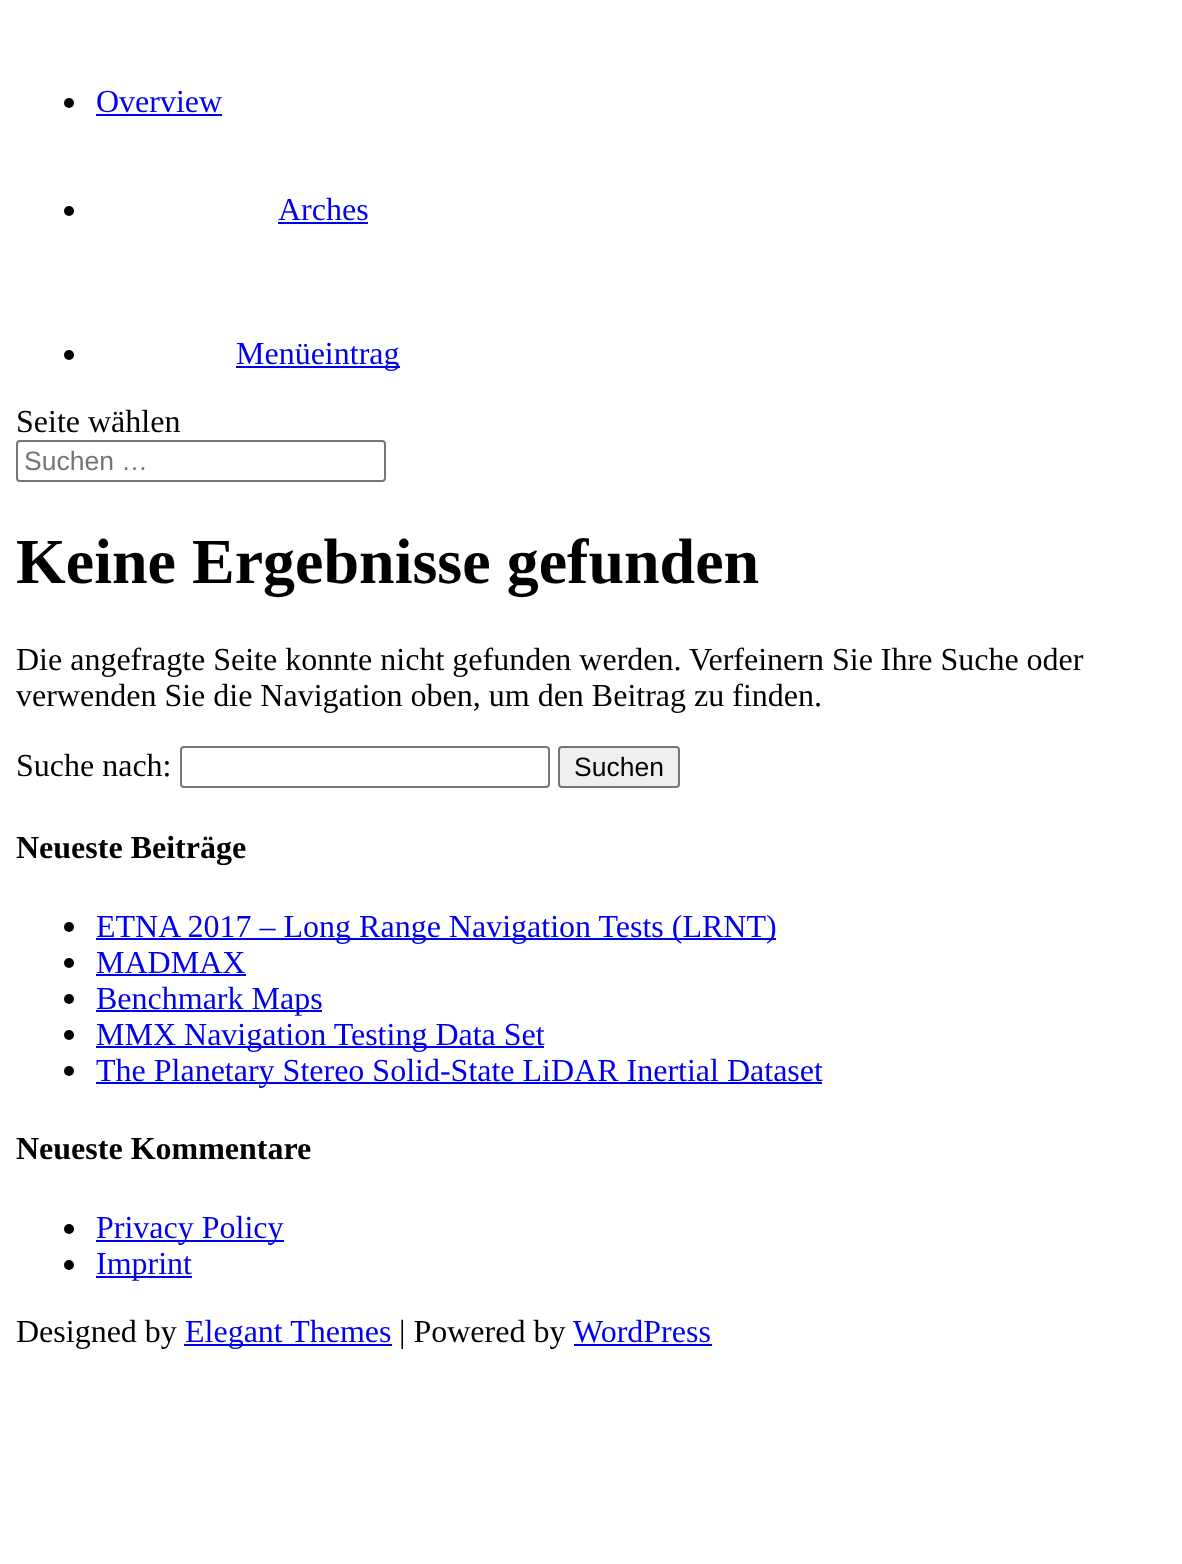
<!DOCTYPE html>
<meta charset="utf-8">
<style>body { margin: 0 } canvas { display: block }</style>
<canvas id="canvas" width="1182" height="1564"></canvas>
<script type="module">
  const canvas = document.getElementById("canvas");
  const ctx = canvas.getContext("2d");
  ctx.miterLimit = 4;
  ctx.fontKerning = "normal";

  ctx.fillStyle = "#ffffff";
  ctx.fillRect(0, 0, 1182, 1564);
  ctx.fillStyle = "#000000";
  ctx.beginPath();
  ctx.arc(69, 103, 5, 0, Math.PI * 2);
  ctx.fill();
  ctx.font = "32px Liberation Serif";
  ctx.fillStyle = "#0000ee";
  ctx.fillText("Overview", 96, 112);
  ctx.fillRect(96, 114, 126, 2);
  ctx.fillStyle = "#000000";
  ctx.beginPath();
  ctx.arc(69, 211, 5, 0, Math.PI * 2);
  ctx.fill();
  ctx.fillStyle = "#0000ee";
  ctx.fillText("Arches", 278, 220);
  ctx.fillRect(278, 222, 90, 2);
  ctx.fillStyle = "#000000";
  ctx.beginPath();
  ctx.arc(69, 355, 5, 0, Math.PI * 2);
  ctx.fill();
  ctx.fillStyle = "#0000ee";
  ctx.fillRect(236, 366, 164, 2);
  ctx.fillText("Menüeintrag", 236, 364);
  ctx.fillStyle = "#000000";
  ctx.fillText("Seite wählen", 16, 432);
  ctx.beginPath();
  ctx.roundRect(17, 441, 368, 40, 3);
  ctx.strokeStyle = "#767676";
  ctx.lineWidth = 2;
  ctx.stroke();
  ctx.font = "26.5px Liberation Sans";
  ctx.fillStyle = "#757575";
  ctx.fillText("Suchen …", 24, 470);
  ctx.font = "bold 64px Liberation Serif";
  ctx.fillStyle = "#000000";
  ctx.fillText("Keine Ergebnisse gefunden", 16, 583);
  ctx.font = "32px Liberation Serif";
  ctx.fillText("Die angefragte Seite konnte nicht gefunden werden. Verfeinern Sie Ihre Suche oder", 16, 670);
  ctx.fillText("verwenden Sie die Navigation oben, um den Beitrag zu finden.", 16, 706);
  ctx.fillText("Suche nach:", 16, 776);
  ctx.beginPath();
  ctx.roundRect(181, 747, 368, 40, 3);
  ctx.stroke();
  ctx.fillStyle = "#efefef";
  ctx.beginPath();
  ctx.roundRect(559, 747, 120, 40, 3);
  ctx.fill();
  ctx.stroke();
  ctx.font = "26.5px Liberation Sans";
  ctx.fillStyle = "#000000";
  ctx.fillText("Suchen", 574, 776);
  ctx.font = "bold 32px Liberation Serif";
  ctx.fillText("Neueste Beiträge", 16, 858);
  ctx.beginPath();
  ctx.arc(69, 927, 5, 0, Math.PI * 2);
  ctx.fill();
  ctx.fillStyle = "#0000ee";
  ctx.fillRect(96, 938, 680, 2);
  ctx.font = "32px Liberation Serif";
  ctx.fillText("ETNA 2017 – Long Range Navigation Tests (LRNT)", 96, 937);
  ctx.fillStyle = "#000000";
  ctx.beginPath();
  ctx.arc(69, 963, 5, 0, Math.PI * 2);
  ctx.fill();
  ctx.fillStyle = "#0000ee";
  ctx.fillText("MADMAX", 96, 973);
  ctx.fillRect(96, 974, 150, 2);
  ctx.fillStyle = "#000000";
  ctx.beginPath();
  ctx.arc(69, 999, 5, 0, Math.PI * 2);
  ctx.fill();
  ctx.fillStyle = "#0000ee";
  ctx.fillRect(96, 1010, 226, 2);
  ctx.fillText("Benchmark Maps", 96, 1009);
  ctx.fillStyle = "#000000";
  ctx.beginPath();
  ctx.arc(69, 1035, 5, 0, Math.PI * 2);
  ctx.fill();
  ctx.fillStyle = "#0000ee";
  ctx.fillRect(96, 1046, 448, 2);
  ctx.fillText("MMX Navigation Testing Data Set", 96, 1045);
  ctx.fillStyle = "#000000";
  ctx.beginPath();
  ctx.arc(69, 1071, 5, 0, Math.PI * 2);
  ctx.fill();
  ctx.fillStyle = "#0000ee";
  ctx.fillRect(96, 1082, 726, 2);
  ctx.fillText("The Planetary Stereo Solid-State LiDAR Inertial Dataset", 96, 1081);
  ctx.font = "bold 32px Liberation Serif";
  ctx.fillStyle = "#000000";
  ctx.fillText("Neueste Kommentare", 16, 1159);
  ctx.beginPath();
  ctx.arc(69, 1229, 5, 0, Math.PI * 2);
  ctx.fill();
  ctx.fillStyle = "#0000ee";
  ctx.fillRect(96, 1240, 188, 2);
  ctx.font = "32px Liberation Serif";
  ctx.fillText("Privacy Policy", 96, 1238);
  ctx.fillStyle = "#000000";
  ctx.beginPath();
  ctx.arc(69, 1265, 5, 0, Math.PI * 2);
  ctx.fill();
  ctx.fillStyle = "#0000ee";
  ctx.fillRect(96, 1276, 96, 2);
  ctx.fillText("Imprint", 96, 1274);
  ctx.fillStyle = "#000000";
  ctx.fillText("Designed by", 16, 1342);
  ctx.fillStyle = "#0000ee";
  ctx.fillRect(184, 1344, 208, 2);
  ctx.fillText("Elegant Themes", 185, 1342);
  ctx.fillStyle = "#000000";
  ctx.fillText("| Powered by", 399, 1342);
  ctx.fillStyle = "#0000ee";
  ctx.fillText("WordPress", 573, 1342);
  ctx.fillRect(574, 1344, 138, 2);
</script>
